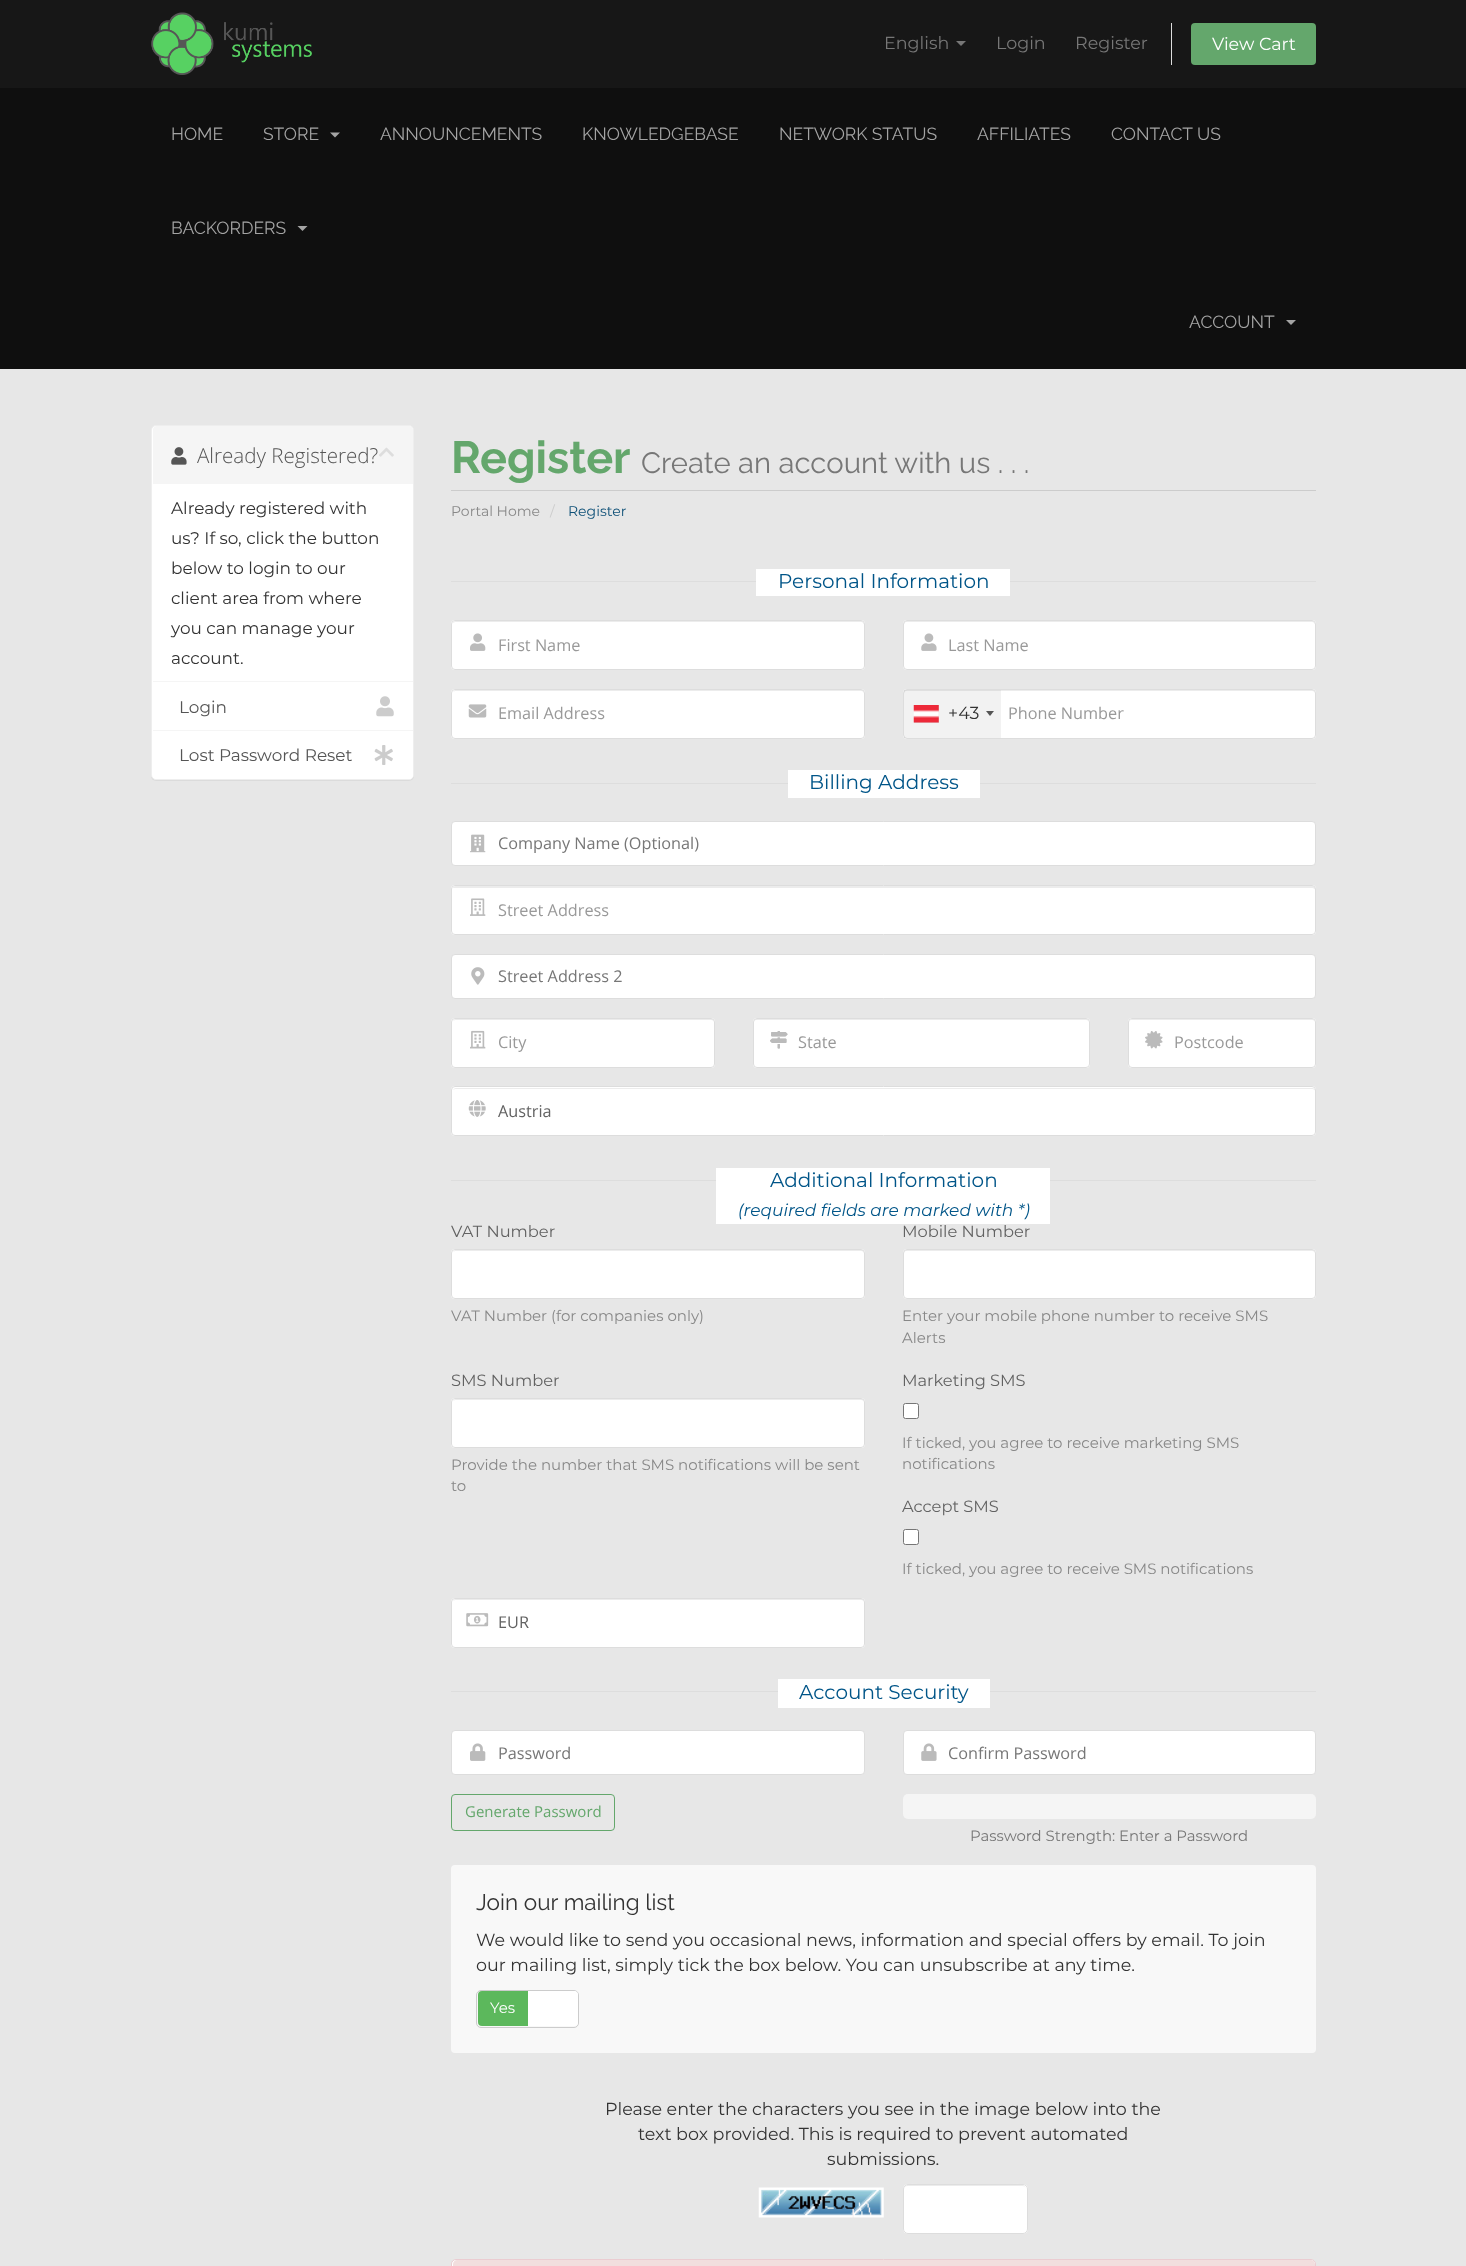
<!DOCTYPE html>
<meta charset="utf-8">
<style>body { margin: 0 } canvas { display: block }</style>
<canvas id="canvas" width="1466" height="2266"></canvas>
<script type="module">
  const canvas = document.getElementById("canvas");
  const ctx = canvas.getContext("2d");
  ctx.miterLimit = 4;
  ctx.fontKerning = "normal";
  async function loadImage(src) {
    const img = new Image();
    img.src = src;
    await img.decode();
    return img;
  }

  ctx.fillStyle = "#e7e7e7";
  ctx.fillRect(0, 0, 1466, 2266);
  ctx.fillStyle = "#171717";
  ctx.fillRect(0, 0, 1466, 88);
  ctx.drawImage(await loadImage("img1.png"), 151, 12, 161, 63);
  ctx.font = "17.5px Montserrat";
  ctx.fillStyle = "#777777";
  ctx.fillText("English", 884, 49);
  ctx.beginPath();
  ctx.moveTo(956, 41);
  ctx.lineTo(966, 41);
  ctx.lineTo(961, 46);
  ctx.closePath();
  ctx.fill();
  ctx.fillText("Login", 996, 49);
  ctx.fillText("Register", 1075, 49);
  ctx.fillStyle = "#dddddd";
  ctx.fillRect(1171, 23, 1, 42);
  ctx.fillStyle = "#64a76c";
  ctx.beginPath();
  ctx.roundRect(1191, 23, 125, 42, 4);
  ctx.fill();
  ctx.fillStyle = "#ffffff";
  ctx.fillText("View Cart", 1212, 50);
  ctx.fillStyle = "#0f0f0f";
  ctx.fillRect(0, 88, 1466, 281);
  ctx.font = "17.5px Raleway";
  ctx.fillStyle = "#a4a4a4";
  ctx.fillText("HOME", 171, 140);
  ctx.fillText("STORE", 263, 140);
  ctx.beginPath();
  ctx.moveTo(330, 132.5);
  ctx.lineTo(340, 132.5);
  ctx.lineTo(335, 137.5);
  ctx.closePath();
  ctx.fill();
  ctx.fillText("ANNOUNCEMENTS", 380, 140);
  ctx.fillText("KNOWLEDGEBASE", 582, 140);
  ctx.fillText("NETWORK STATUS", 779, 140);
  ctx.fillText("AFFILIATES", 977, 140);
  ctx.fillText("CONTACT US", 1111, 140);
  ctx.fillText("BACKORDERS", 171, 234);
  ctx.beginPath();
  ctx.moveTo(297.5, 226);
  ctx.lineTo(307.5, 226);
  ctx.lineTo(302.5, 231);
  ctx.closePath();
  ctx.fill();
  ctx.fillText("ACCOUNT", 1189, 328);
  ctx.beginPath();
  ctx.moveTo(1286, 320);
  ctx.lineTo(1296, 320);
  ctx.lineTo(1291, 325);
  ctx.closePath();
  ctx.fill();
  ctx.fillStyle = "rgba(0, 0, 0, 0.05)";
  ctx.filter = "blur(0.5px)";
  ctx.beginPath();
  ctx.roundRect(151, 426, 263, 355, 5);
  ctx.fill();
  ctx.filter = "none";
  ctx.fillStyle = "#ffffff";
  ctx.beginPath();
  ctx.roundRect(151.5, 425.5, 262, 354, 4.5);
  ctx.fill();
  ctx.strokeStyle = "#eeeeee";
  ctx.stroke();
  ctx.fillStyle = "#f5f5f5";
  ctx.beginPath();
  ctx.roundRect(153, 426, 260, 58, [4, 4, 0, 0]);
  ctx.fill();
  ctx.drawImage(await loadImage("img2.png"), 171, 447, 16, 18);
  ctx.font = "300 20.6px Open Sans";
  ctx.fillStyle = "#555555";
  ctx.fillText("Already Registered?", 197, 463);
  ctx.drawImage(await loadImage("img3.png"), 379, 447, 15, 10);
  ctx.fillStyle = "#f5f5f5";
  ctx.fillRect(153, 681, 260, 1);
  ctx.font = "16.9px Montserrat";
  ctx.fillStyle = "#333333";
  ctx.fillText("Already registered with", 171, 514);
  ctx.fillText("us? If so, click the button", 171, 544);
  ctx.fillText("below to login to our", 171, 574);
  ctx.fillText("client area from where", 171, 604);
  ctx.fillText("you can manage your", 171, 634);
  ctx.fillText("account.", 171, 664);
  ctx.fillStyle = "#555555";
  ctx.fillText("Login", 179, 713);
  ctx.drawImage(await loadImage("img4.png"), 376, 696, 18, 21);
  ctx.fillStyle = "#ffffff";
  ctx.beginPath();
  ctx.roundRect(153, 730, 260, 49, [0, 0, 4, 4]);
  ctx.fill();
  ctx.fillStyle = "#f5f5f5";
  ctx.fillRect(153, 730, 260, 1);
  ctx.fillStyle = "#555555";
  ctx.fillText("Lost Password Reset", 179, 761);
  ctx.drawImage(await loadImage("img5.png"), 374, 745, 19, 20);
  ctx.fillStyle = "#cccccc";
  ctx.fillRect(451, 490, 865, 1);
  ctx.font = "bold 45px Raleway";
  ctx.fillStyle = "#64a76c";
  ctx.fillText("Register", 451, 473);
  ctx.font = "29.25px Raleway";
  ctx.fillStyle = "#777777";
  ctx.fillText("Create an account with us . . .", 641, 473);
  ctx.font = "14px Montserrat";
  ctx.fillStyle = "#888888";
  ctx.fillText("Portal Home", 451, 516);
  ctx.fillStyle = "#cccccc";
  ctx.fillText("/", 550, 516);
  ctx.fillStyle = "#0e5077";
  ctx.fillText("Register", 568, 516);
  ctx.fillStyle = "#dddddd";
  ctx.fillRect(451, 581, 865, 1);
  ctx.fillStyle = "#ffffff";
  ctx.fillRect(756, 569, 254, 27);
  ctx.font = "20px Montserrat";
  ctx.fillStyle = "#005588";
  ctx.fillText("Personal Information", 778, 588);
  ctx.fillStyle = "#ffffff";
  ctx.beginPath();
  ctx.roundRect(451, 620, 414, 50, 4);
  ctx.fill();
  ctx.fillStyle = "#ececec";
  ctx.beginPath();
  ctx.moveTo(455, 622);
  ctx.lineTo(861, 622);
  ctx.bezierCurveTo(863, 622, 864, 624, 864, 625);
  ctx.lineTo(864, 623);
  ctx.lineTo(862, 621);
  ctx.lineTo(456, 621);
  ctx.bezierCurveTo(454, 621, 453, 622, 453, 623);
  ctx.closePath();
  ctx.fill();
  ctx.beginPath();
  ctx.roundRect(451.5, 620.5, 413, 49, 3.5);
  ctx.strokeStyle = "#dddddd";
  ctx.stroke();
  ctx.drawImage(await loadImage("img6.png"), 470, 633, 16, 18);
  ctx.font = "16.25px Open Sans";
  ctx.fillStyle = "#999999";
  ctx.fillText("First Name", 498, 651);
  ctx.fillStyle = "#ffffff";
  ctx.beginPath();
  ctx.roundRect(903, 620, 413, 50, 4);
  ctx.fill();
  ctx.fillStyle = "#ececec";
  ctx.beginPath();
  ctx.moveTo(906, 622);
  ctx.lineTo(1312, 622);
  ctx.bezierCurveTo(1314, 622, 1315, 624, 1315, 625);
  ctx.bezierCurveTo(1315, 623, 1315, 621, 1312, 621);
  ctx.lineTo(906, 621);
  ctx.lineTo(904, 622);
  ctx.lineTo(904, 625);
  ctx.bezierCurveTo(904, 624, 905, 622, 906, 622);
  ctx.closePath();
  ctx.fill();
  ctx.beginPath();
  ctx.roundRect(903.5, 620.5, 412, 49, 3.5);
  ctx.stroke();
  ctx.drawImage(await loadImage("img7.png"), 921, 633, 16, 18);
  ctx.fillStyle = "#999999";
  ctx.fillText("Last Name", 948, 651);
  ctx.fillStyle = "#ffffff";
  ctx.beginPath();
  ctx.roundRect(451, 689, 414, 50, 4);
  ctx.fill();
  ctx.fillStyle = "#ececec";
  ctx.beginPath();
  ctx.moveTo(455, 691);
  ctx.lineTo(861, 691);
  ctx.bezierCurveTo(863, 691, 864, 692, 864, 694);
  ctx.bezierCurveTo(864, 692, 864, 690, 862, 690);
  ctx.lineTo(455, 690);
  ctx.lineTo(453, 692);
  ctx.closePath();
  ctx.fill();
  ctx.beginPath();
  ctx.roundRect(451.5, 689.5, 413, 49, 3.5);
  ctx.stroke();
  ctx.drawImage(await loadImage("img8.png"), 468, 704, 19, 14);
  ctx.fillStyle = "#999999";
  ctx.fillText("Email Address", 498, 719);
  ctx.fillStyle = "#ffffff";
  ctx.beginPath();
  ctx.roundRect(903, 689, 413, 50, 4);
  ctx.fill();
  ctx.fillStyle = "#ececec";
  ctx.beginPath();
  ctx.moveTo(906, 691);
  ctx.lineTo(1312, 691);
  ctx.bezierCurveTo(1314, 691, 1315, 692, 1315, 694);
  ctx.bezierCurveTo(1315, 692, 1315, 690, 1312, 690);
  ctx.lineTo(906, 690);
  ctx.lineTo(904, 691);
  ctx.lineTo(904, 694);
  ctx.bezierCurveTo(904, 692, 905, 691, 906, 691);
  ctx.closePath();
  ctx.fill();
  ctx.beginPath();
  ctx.roundRect(903.5, 689.5, 412, 49, 3.5);
  ctx.stroke();
  ctx.fillStyle = "rgba(0, 0, 0, 0.05)";
  ctx.fillRect(904, 690, 97, 48);
  ctx.fillStyle = "#888888";
  ctx.filter = "blur(0.5px)";
  ctx.beginPath();
  ctx.rect(914, 705, 25, 18);
  ctx.fill();
  ctx.filter = "none";
  ctx.fillStyle = "#dbdbdb";
  ctx.fillRect(914, 705, 25, 18);
  ctx.drawImage(await loadImage("img9.png"), 913, 705, 26, 18);
  ctx.font = "17.5px Montserrat";
  ctx.fillStyle = "#333333";
  ctx.fillText("+43", 948, 719);
  ctx.fillStyle = "#555555";
  ctx.beginPath();
  ctx.moveTo(986, 711);
  ctx.lineTo(994, 711);
  ctx.lineTo(990, 716);
  ctx.closePath();
  ctx.fill();
  ctx.font = "16.25px Open Sans";
  ctx.fillStyle = "#999999";
  ctx.fillText("Phone Number", 1008, 719);
  ctx.fillStyle = "#dddddd";
  ctx.fillRect(451, 783, 865, 1);
  ctx.fillStyle = "#ffffff";
  ctx.fillRect(788, 770, 192, 28);
  ctx.font = "20px Montserrat";
  ctx.fillStyle = "#005588";
  ctx.fillText("Billing Address", 809, 789);
  ctx.fillStyle = "#ffffff";
  ctx.beginPath();
  ctx.roundRect(451.5, 821.5, 864, 44, 3.5);
  ctx.fill();
  ctx.stroke();
  ctx.drawImage(await loadImage("img10.png"), 470, 834, 16, 19);
  ctx.font = "16.25px Open Sans";
  ctx.fillStyle = "#777777";
  ctx.fillText("Company Name (Optional)", 498, 849);
  ctx.fillStyle = "#ffffff";
  ctx.beginPath();
  ctx.roundRect(451, 885, 865, 50, 4);
  ctx.fill();
  ctx.fillStyle = "#ececec";
  ctx.beginPath();
  ctx.moveTo(455, 888);
  ctx.lineTo(1312, 888);
  ctx.bezierCurveTo(1314, 888, 1315, 889, 1315, 890);
  ctx.lineTo(1315, 888);
  ctx.bezierCurveTo(1315, 887, 1314, 886, 1312, 886);
  ctx.lineTo(456, 886);
  ctx.bezierCurveTo(454, 886, 453, 887, 453, 888);
  ctx.closePath();
  ctx.fill();
  ctx.beginPath();
  ctx.roundRect(451.5, 885.5, 864, 49, 3.5);
  ctx.stroke();
  ctx.drawImage(await loadImage("img11.png"), 470, 898, 16, 18);
  ctx.fillStyle = "#999999";
  ctx.fillText("Street Address", 498, 916);
  ctx.fillStyle = "#ffffff";
  ctx.beginPath();
  ctx.roundRect(451.5, 954.5, 864, 44, 3.5);
  ctx.fill();
  ctx.stroke();
  ctx.drawImage(await loadImage("img12.png"), 471, 967, 14, 18);
  ctx.fillStyle = "#777777";
  ctx.fillText("Street Address 2", 498, 982);
  ctx.fillStyle = "#ffffff";
  ctx.beginPath();
  ctx.roundRect(451, 1018, 264, 50, 4);
  ctx.fill();
  ctx.fillStyle = "#ececec";
  ctx.beginPath();
  ctx.moveTo(455, 1020);
  ctx.lineTo(711, 1020);
  ctx.bezierCurveTo(713, 1020, 714, 1021, 714, 1022);
  ctx.bezierCurveTo(714, 1020, 713, 1019, 712, 1019);
  ctx.lineTo(456, 1019);
  ctx.bezierCurveTo(454, 1019, 454, 1020, 453, 1021);
  ctx.closePath();
  ctx.fill();
  ctx.beginPath();
  ctx.roundRect(451.5, 1018.5, 263, 49, 3.5);
  ctx.stroke();
  ctx.drawImage(await loadImage("img13.png"), 470, 1030, 16, 19);
  ctx.fillStyle = "#999999";
  ctx.fillText("City", 498, 1048);
  ctx.fillStyle = "#ffffff";
  ctx.beginPath();
  ctx.roundRect(753, 1018, 337, 50, 4);
  ctx.fill();
  ctx.fillStyle = "#ececec";
  ctx.beginPath();
  ctx.moveTo(756, 1020);
  ctx.lineTo(1086, 1020);
  ctx.bezierCurveTo(1088, 1020, 1089, 1021, 1089, 1022);
  ctx.bezierCurveTo(1089, 1020, 1088, 1019, 1086, 1019);
  ctx.lineTo(756, 1019);
  ctx.bezierCurveTo(755, 1019, 754, 1020, 754, 1022);
  ctx.bezierCurveTo(754, 1021, 755, 1020, 756, 1020);
  ctx.closePath();
  ctx.fill();
  ctx.beginPath();
  ctx.roundRect(753.5, 1018.5, 336, 49, 3.5);
  ctx.stroke();
  ctx.drawImage(await loadImage("img14.png"), 770, 1031, 18, 18);
  ctx.drawImage(await loadImage("img15.png"), 770, 1031, 18, 18);
  ctx.fillStyle = "#999999";
  ctx.fillText("State", 798, 1048);
  ctx.fillStyle = "#ffffff";
  ctx.beginPath();
  ctx.roundRect(1128, 1018, 188, 50, 4);
  ctx.fill();
  ctx.fillStyle = "#ececec";
  ctx.beginPath();
  ctx.moveTo(1131, 1020);
  ctx.lineTo(1312, 1020);
  ctx.bezierCurveTo(1314, 1020, 1315, 1021, 1315, 1022);
  ctx.bezierCurveTo(1315, 1020, 1314, 1019, 1312, 1019);
  ctx.lineTo(1132, 1019);
  ctx.lineTo(1130, 1020);
  ctx.lineTo(1129, 1022);
  ctx.bezierCurveTo(1129, 1021, 1130, 1020, 1131, 1020);
  ctx.closePath();
  ctx.fill();
  ctx.beginPath();
  ctx.roundRect(1128.5, 1018.5, 187, 49, 3.5);
  ctx.stroke();
  ctx.drawImage(await loadImage("img16.png"), 1145, 1031, 18, 18);
  ctx.fillStyle = "#999999";
  ctx.fillText("Postcode", 1174, 1048);
  ctx.fillStyle = "#ffffff";
  ctx.beginPath();
  ctx.roundRect(451, 1086, 865, 50, 4);
  ctx.fill();
  ctx.fillStyle = "#ececec";
  ctx.beginPath();
  ctx.moveTo(455, 1089);
  ctx.lineTo(1312, 1089);
  ctx.bezierCurveTo(1314, 1089, 1315, 1090, 1315, 1091);
  ctx.lineTo(1315, 1090);
  ctx.bezierCurveTo(1315, 1089, 1314, 1088, 1312, 1088);
  ctx.lineTo(456, 1088);
  ctx.bezierCurveTo(454, 1088, 454, 1089, 453, 1090);
  ctx.closePath();
  ctx.fill();
  ctx.beginPath();
  ctx.roundRect(451.5, 1086.5, 864, 49, 3.5);
  ctx.stroke();
  ctx.drawImage(await loadImage("img17.png"), 468, 1100, 18, 17);
  ctx.fillStyle = "#626262";
  ctx.fillText("Austria", 498, 1117);
  ctx.fillStyle = "#dddddd";
  ctx.fillRect(451, 1180, 865, 1);
  ctx.fillStyle = "#ffffff";
  ctx.fillRect(716, 1168, 334, 56);
  ctx.font = "20px Montserrat";
  ctx.fillStyle = "#005588";
  ctx.fillText("Additional Information", 770, 1187);
  ctx.font = "italic 17px Montserrat";
  ctx.fillText("(required fields are marked with *)", 738, 1216);
  ctx.font = "16.25px Montserrat";
  ctx.fillStyle = "#626262";
  ctx.fillText("VAT Number", 451, 1237);
  ctx.fillStyle = "#ffffff";
  ctx.beginPath();
  ctx.roundRect(451, 1249, 414, 50, 4);
  ctx.fill();
  ctx.fillStyle = "#ececec";
  ctx.beginPath();
  ctx.moveTo(455, 1251);
  ctx.lineTo(861, 1251);
  ctx.bezierCurveTo(863, 1251, 864, 1252, 864, 1254);
  ctx.bezierCurveTo(864, 1252, 864, 1250, 862, 1250);
  ctx.lineTo(455, 1250);
  ctx.lineTo(453, 1252);
  ctx.closePath();
  ctx.fill();
  ctx.beginPath();
  ctx.roundRect(451.5, 1249.5, 413, 49, 3.5);
  ctx.stroke();
  ctx.font = "15px Montserrat";
  ctx.fillStyle = "#888888";
  ctx.fillText("VAT Number (for companies only)", 451, 1321);
  ctx.font = "16.25px Montserrat";
  ctx.fillStyle = "#626262";
  ctx.fillText("Mobile Number", 902, 1237);
  ctx.fillStyle = "#ffffff";
  ctx.beginPath();
  ctx.roundRect(903, 1249, 413, 50, 4);
  ctx.fill();
  ctx.fillStyle = "#ececec";
  ctx.beginPath();
  ctx.moveTo(906, 1251);
  ctx.lineTo(1312, 1251);
  ctx.bezierCurveTo(1314, 1251, 1315, 1252, 1315, 1254);
  ctx.bezierCurveTo(1315, 1252, 1315, 1250, 1312, 1250);
  ctx.lineTo(906, 1250);
  ctx.lineTo(904, 1251);
  ctx.lineTo(904, 1254);
  ctx.bezierCurveTo(904, 1252, 905, 1251, 906, 1251);
  ctx.closePath();
  ctx.fill();
  ctx.beginPath();
  ctx.roundRect(903.5, 1249.5, 412, 49, 3.5);
  ctx.stroke();
  ctx.font = "15px Montserrat";
  ctx.fillStyle = "#888888";
  ctx.fillText("Enter your mobile phone number to receive SMS", 902, 1321);
  ctx.fillText("Alerts", 902, 1343);
  ctx.font = "16.25px Montserrat";
  ctx.fillStyle = "#626262";
  ctx.fillText("SMS Number", 451, 1386);
  ctx.fillStyle = "#ffffff";
  ctx.beginPath();
  ctx.roundRect(451, 1398, 414, 50, 4);
  ctx.fill();
  ctx.fillStyle = "#ececec";
  ctx.beginPath();
  ctx.moveTo(455, 1400);
  ctx.lineTo(861, 1400);
  ctx.bezierCurveTo(863, 1400, 864, 1401, 864, 1402);
  ctx.bezierCurveTo(864, 1400, 863, 1399, 862, 1399);
  ctx.lineTo(456, 1399);
  ctx.bezierCurveTo(454, 1399, 454, 1400, 453, 1401);
  ctx.closePath();
  ctx.fill();
  ctx.beginPath();
  ctx.roundRect(451.5, 1398.5, 413, 49, 3.5);
  ctx.stroke();
  ctx.font = "15px Montserrat";
  ctx.fillStyle = "#888888";
  ctx.fillText("Provide the number that SMS notifications will be sent", 451, 1470);
  ctx.fillText("to", 451, 1491);
  ctx.font = "16.25px Montserrat";
  ctx.fillStyle = "#626262";
  ctx.fillText("Marketing SMS", 902, 1386);
  ctx.fillStyle = "#ffffff";
  ctx.beginPath();
  ctx.roundRect(903.5, 1403.5, 15, 15, 2);
  ctx.fill();
  ctx.strokeStyle = "#767676";
  ctx.stroke();
  ctx.font = "15px Montserrat";
  ctx.fillStyle = "#888888";
  ctx.fillText("If ticked, you agree to receive marketing SMS", 902, 1448);
  ctx.fillText("notifications", 902, 1469);
  ctx.font = "16.25px Montserrat";
  ctx.fillStyle = "#626262";
  ctx.fillText("Accept SMS", 902, 1512);
  ctx.fillStyle = "#ffffff";
  ctx.beginPath();
  ctx.roundRect(903.5, 1529.5, 15, 15, 2);
  ctx.fill();
  ctx.stroke();
  ctx.font = "15px Montserrat";
  ctx.fillStyle = "#888888";
  ctx.fillText("If ticked, you agree to receive SMS notifications", 902, 1574);
  ctx.fillStyle = "#ffffff";
  ctx.beginPath();
  ctx.roundRect(451, 1598, 414, 50, 4);
  ctx.fill();
  ctx.fillStyle = "#ececec";
  ctx.beginPath();
  ctx.moveTo(455, 1600);
  ctx.lineTo(861, 1600);
  ctx.bezierCurveTo(863, 1600, 864, 1601, 864, 1602);
  ctx.bezierCurveTo(864, 1600, 863, 1599, 862, 1599);
  ctx.lineTo(456, 1599);
  ctx.bezierCurveTo(454, 1599, 454, 1600, 453, 1601);
  ctx.closePath();
  ctx.fill();
  ctx.beginPath();
  ctx.roundRect(451.5, 1598.5, 413, 49, 3.5);
  ctx.strokeStyle = "#dddddd";
  ctx.stroke();
  ctx.drawImage(await loadImage("img18.png"), 466, 1613, 23, 14);
  ctx.font = "16.25px Open Sans";
  ctx.fillStyle = "#626262";
  ctx.fillText("EUR", 498, 1628);
  ctx.fillStyle = "#dddddd";
  ctx.fillRect(451, 1691, 865, 1);
  ctx.fillStyle = "#ffffff";
  ctx.fillRect(778, 1679, 212, 29);
  ctx.font = "20px Montserrat";
  ctx.fillStyle = "#005588";
  ctx.fillText("Account Security", 799, 1699);
  ctx.fillStyle = "#ffffff";
  ctx.beginPath();
  ctx.roundRect(451.5, 1730.5, 413, 44, 3.5);
  ctx.fill();
  ctx.stroke();
  ctx.drawImage(await loadImage("img19.png"), 470, 1743, 16, 18);
  ctx.font = "16.25px Open Sans";
  ctx.fillStyle = "#777777";
  ctx.fillText("Password", 498, 1759);
  ctx.fillStyle = "#ffffff";
  ctx.beginPath();
  ctx.roundRect(903.5, 1730.5, 412, 44, 3.5);
  ctx.fill();
  ctx.stroke();
  ctx.drawImage(await loadImage("img20.png"), 921, 1743, 16, 18);
  ctx.fillStyle = "#777777";
  ctx.fillText("Confirm Password", 948, 1759);
  ctx.beginPath();
  ctx.roundRect(451.5, 1794.5, 163, 36, 3.5);
  ctx.strokeStyle = "#64a76c";
  ctx.stroke();
  ctx.font = "15px Open Sans";
  ctx.fillStyle = "#64a76c";
  ctx.fillText("Generate Password", 465, 1817);
  ctx.fillStyle = "#f5f5f5";
  ctx.beginPath();
  ctx.roundRect(903, 1794, 413, 25, 5);
  ctx.fill();
  ctx.font = "14.9px Montserrat";
  ctx.fillStyle = "#777777";
  ctx.fillText("Password Strength: Enter a Password", 970, 1841);
  ctx.fillStyle = "#f8f8f8";
  ctx.beginPath();
  ctx.roundRect(451, 1865, 865, 188, 4);
  ctx.fill();
  ctx.font = "22.5px Raleway";
  ctx.fillStyle = "#333333";
  ctx.fillText("Join our mailing list", 476, 1910);
  ctx.font = "17.5px Montserrat";
  ctx.fillText("We would like to send you occasional news, information and special offers by email. To join", 476, 1946);
  ctx.fillText("our mailing list, simply tick the box below. You can unsubscribe at any time.", 476, 1971);
  ctx.beginPath();
  ctx.roundRect(476.5, 1990.5, 102, 37, 4.5);
  ctx.strokeStyle = "#cccccc";
  ctx.stroke();
  ctx.fillStyle = "#5cb85c";
  ctx.beginPath();
  ctx.roundRect(478, 1991, 50, 35, [4, 0, 0, 4]);
  ctx.fill();
  ctx.font = "15px Montserrat";
  ctx.fillStyle = "#ffffff";
  ctx.fillText("Yes", 490, 2013);
  ctx.beginPath();
  ctx.roundRect(528, 1991, 50, 35, [0, 4, 4, 0]);
  ctx.fill();
  ctx.font = "17.5px Montserrat";
  ctx.fillStyle = "#333333";
  ctx.fillText("Please enter the characters you see in the image below into the", 605, 2115);
  ctx.fillText("text box provided. This is required to prevent automated", 638, 2140);
  ctx.fillText("submissions.", 827, 2165);
  ctx.drawImage(await loadImage("img21.png"), 758, 2187, 126, 31);
  ctx.fillStyle = "#ffffff";
  ctx.beginPath();
  ctx.roundRect(903, 2184, 125, 50, 5);
  ctx.fill();
  ctx.fillStyle = "#ececec";
  ctx.beginPath();
  ctx.moveTo(908, 2186);
  ctx.lineTo(1022, 2186);
  ctx.bezierCurveTo(1025, 2186, 1026, 2188, 1026, 2190);
  ctx.bezierCurveTo(1026, 2180, 1006, 2185, 1003, 2185);
  ctx.lineTo(927, 2185);
  ctx.bezierCurveTo(924, 2185, 904, 2180, 904, 2190);
  ctx.bezierCurveTo(904, 2188, 905, 2186, 908, 2186);
  ctx.closePath();
  ctx.fill();
  ctx.beginPath();
  ctx.roundRect(903.5, 2184.5, 124, 49, 4.5);
  ctx.strokeStyle = "#dddddd";
  ctx.stroke();
  ctx.fillStyle = "#ffffff";
  ctx.beginPath();
  ctx.roundRect(451.5, 2259.5, 864, 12, 4.5);
  ctx.fill();
  ctx.strokeStyle = "#ebccd1";
  ctx.stroke();
  ctx.fillStyle = "#f2dede";
  ctx.beginPath();
  ctx.moveTo(457, 2260);
  ctx.lineTo(1311, 2260);
  ctx.bezierCurveTo(1313, 2260, 1315, 2262, 1315, 2264);
  ctx.lineTo(1315, 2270);
  ctx.lineTo(453, 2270);
  ctx.lineTo(453, 2264);
  ctx.bezierCurveTo(453, 2262, 455, 2260, 457, 2260);
  ctx.closePath();
  ctx.fill();
</script>
